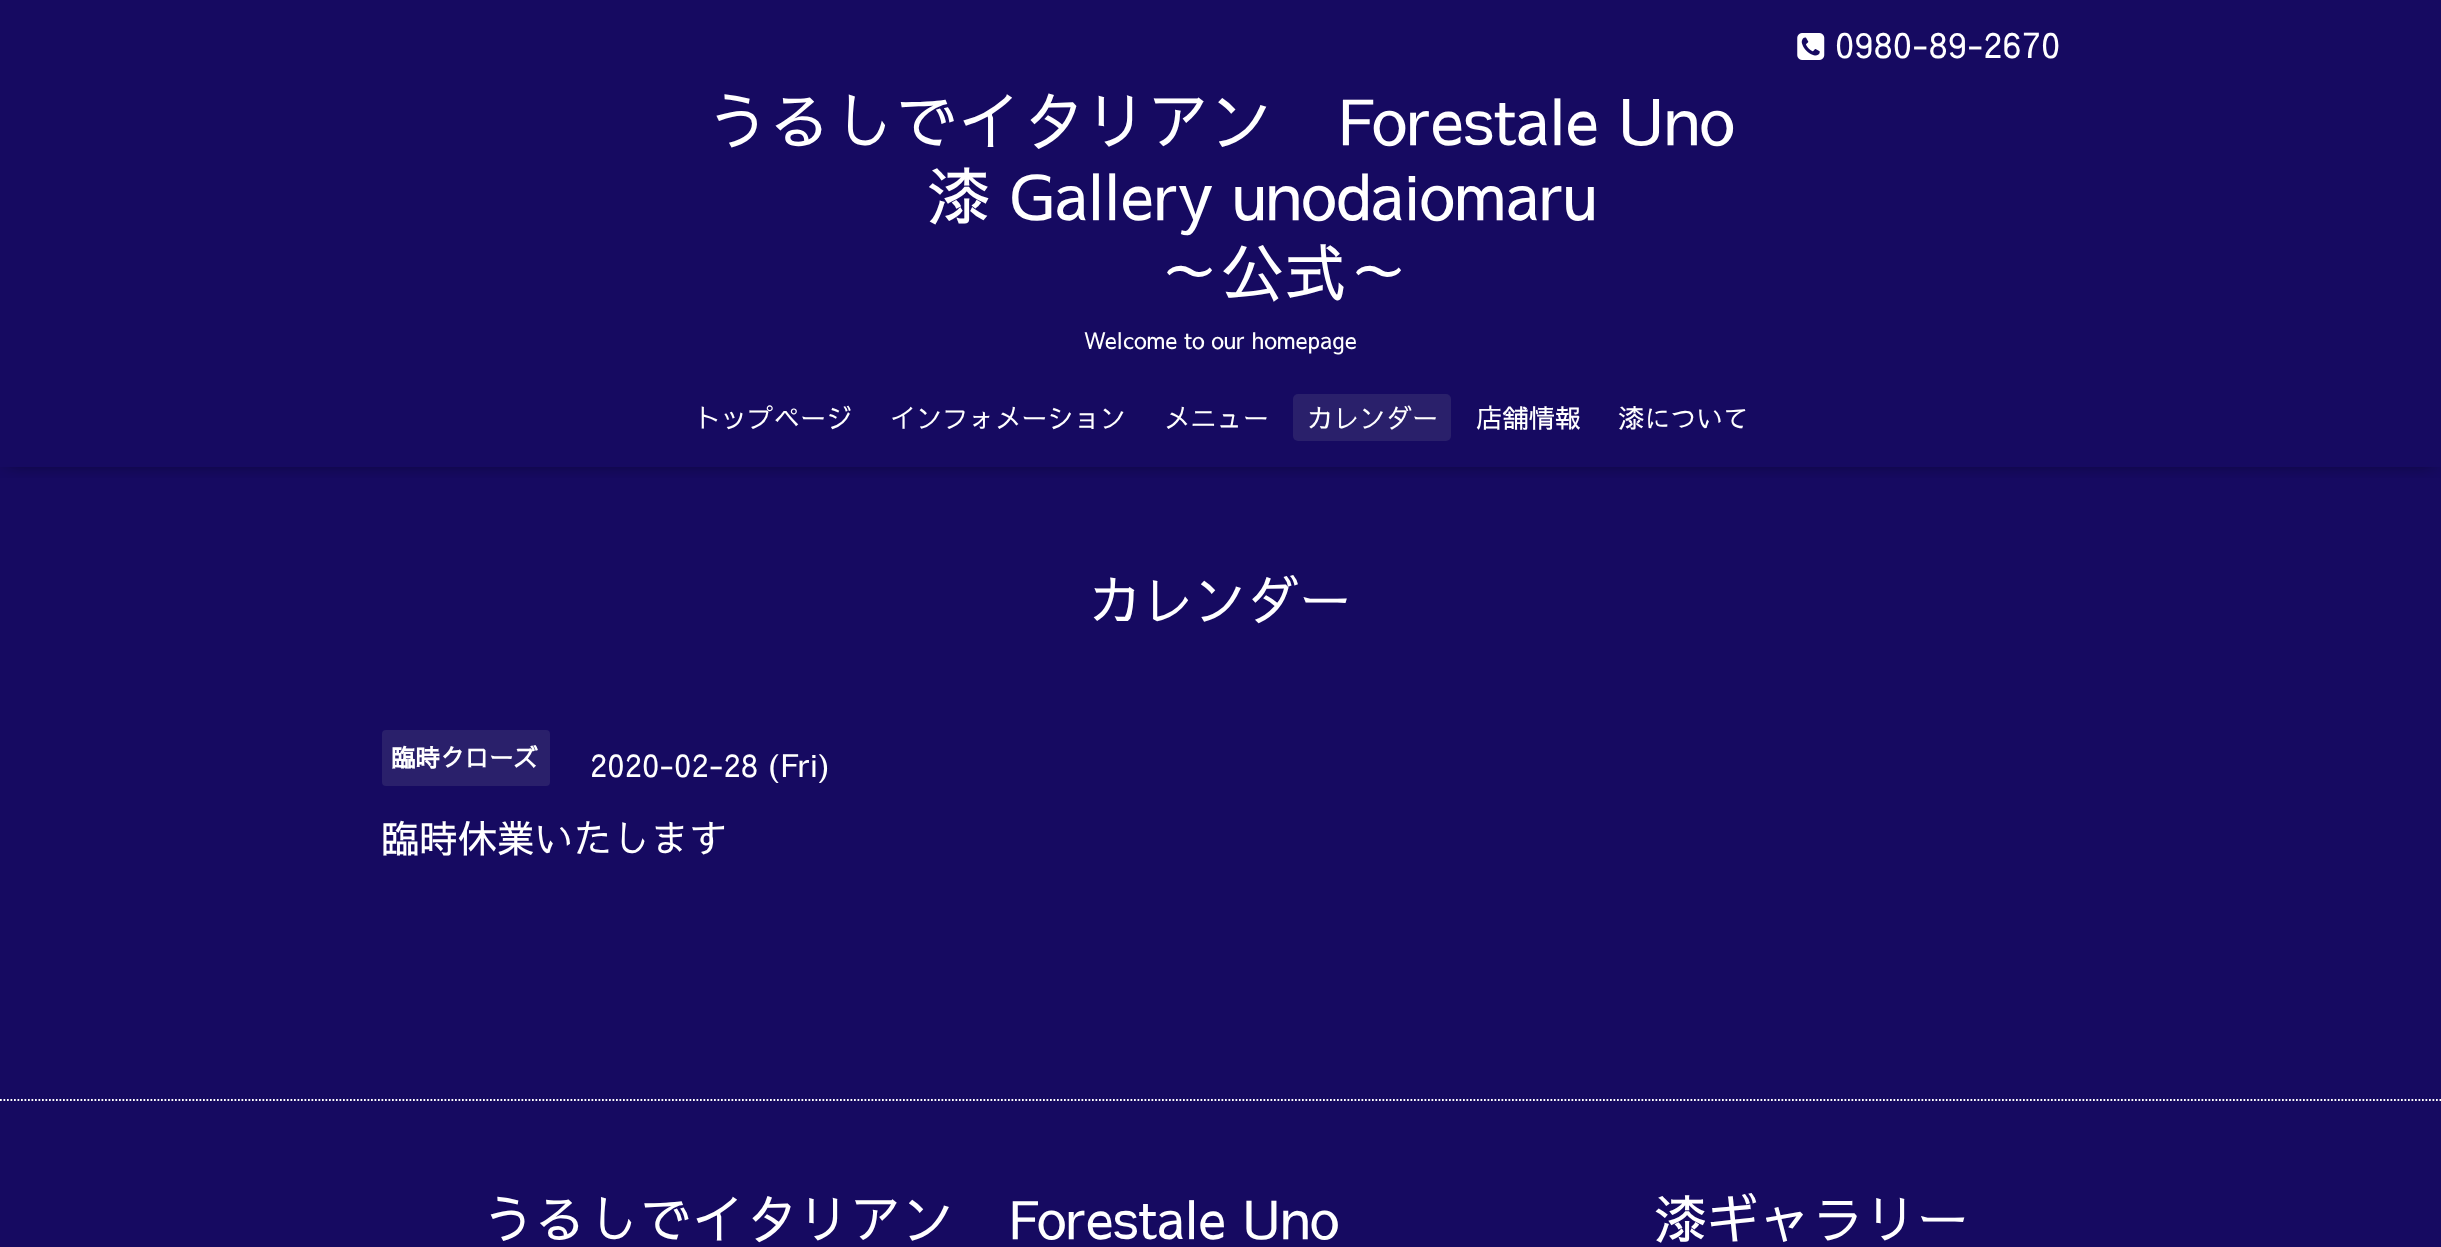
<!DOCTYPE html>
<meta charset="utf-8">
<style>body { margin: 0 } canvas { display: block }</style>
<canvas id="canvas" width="2441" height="1247"></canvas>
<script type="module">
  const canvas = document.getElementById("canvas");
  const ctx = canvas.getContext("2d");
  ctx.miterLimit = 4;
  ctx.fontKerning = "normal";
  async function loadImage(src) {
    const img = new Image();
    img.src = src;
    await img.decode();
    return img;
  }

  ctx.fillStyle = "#160a61";
  ctx.fillRect(0, 0, 2441, 1247);
  ctx.save();
  ctx.beginPath();
  ctx.rect(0, 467, 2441, 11);
  ctx.clip();
  ctx.fillStyle = "rgba(0, 0, 0, 0.6)";
  ctx.filter = "blur(9px)";
  ctx.beginPath();
  ctx.rect(7, 9, 2427, 453);
  ctx.fill();
  ctx.filter = "none";
  ctx.restore();
  ctx.drawImage(await loadImage("img1.png"), 1797, 33, 28, 27);
  ctx.font = "35px Sawarabi Gothic";
  ctx.fillStyle = "#ffffff";
  ctx.fillText("0980-89-2670", 1835, 58);
  ctx.font = "63px Sawarabi Gothic";
  ctx.fillText("うるしでイタリアン　Forestale Uno", 706, 145);
  ctx.fillText("漆 Gallery unodaiomaru", 927, 220);
  ctx.fillText("～公式～", 1158, 296);
  ctx.font = "22.75px Sawarabi Gothic";
  ctx.fillText("Welcome to our homepage", 1084, 349);
  ctx.font = "26.25px Sawarabi Gothic";
  ctx.fillText("トップページ", 695, 428);
  ctx.fillText("インフォメーション", 890, 428);
  ctx.fillText("メニュー", 1164, 428);
  ctx.fillStyle = "#2a206b";
  ctx.beginPath();
  ctx.roundRect(1293, 394, 158, 47, 5);
  ctx.fill();
  ctx.fillStyle = "#ffffff";
  ctx.fillText("カレンダー", 1307, 428);
  ctx.fillText("店舗情報", 1476, 428);
  ctx.fillText("漆について", 1618, 428);
  ctx.font = "52.5px Sawarabi Gothic";
  ctx.fillText("カレンダー", 1089, 620);
  ctx.fillStyle = "#2a206b";
  ctx.beginPath();
  ctx.roundRect(382, 730, 168, 56, 4);
  ctx.fill();
  ctx.font = "bold 24.5px Sawarabi Gothic";
  ctx.fillStyle = "#ffffff";
  ctx.fillText("臨時クローズ", 391, 767);
  ctx.font = "31.5px Sawarabi Gothic";
  ctx.fillText("2020-02-28 (Fri)", 590, 777);
  ctx.font = "38.5px Sawarabi Gothic";
  ctx.fillText("臨時休業いたします", 381, 853);
  ctx.beginPath();
  ctx.moveTo(0, 1100);
  ctx.lineTo(2441, 1100);
  ctx.strokeStyle = "#ffffff";
  ctx.lineWidth = 1.8;
  ctx.setLineDash([1.75, 1.75]);
  ctx.stroke();
  ctx.font = "52.5px Sawarabi Gothic";
  ctx.fillText("うるしでイタリアン　Forestale Uno　　　　　　漆ギャラリー", 482, 1239);
</script>
